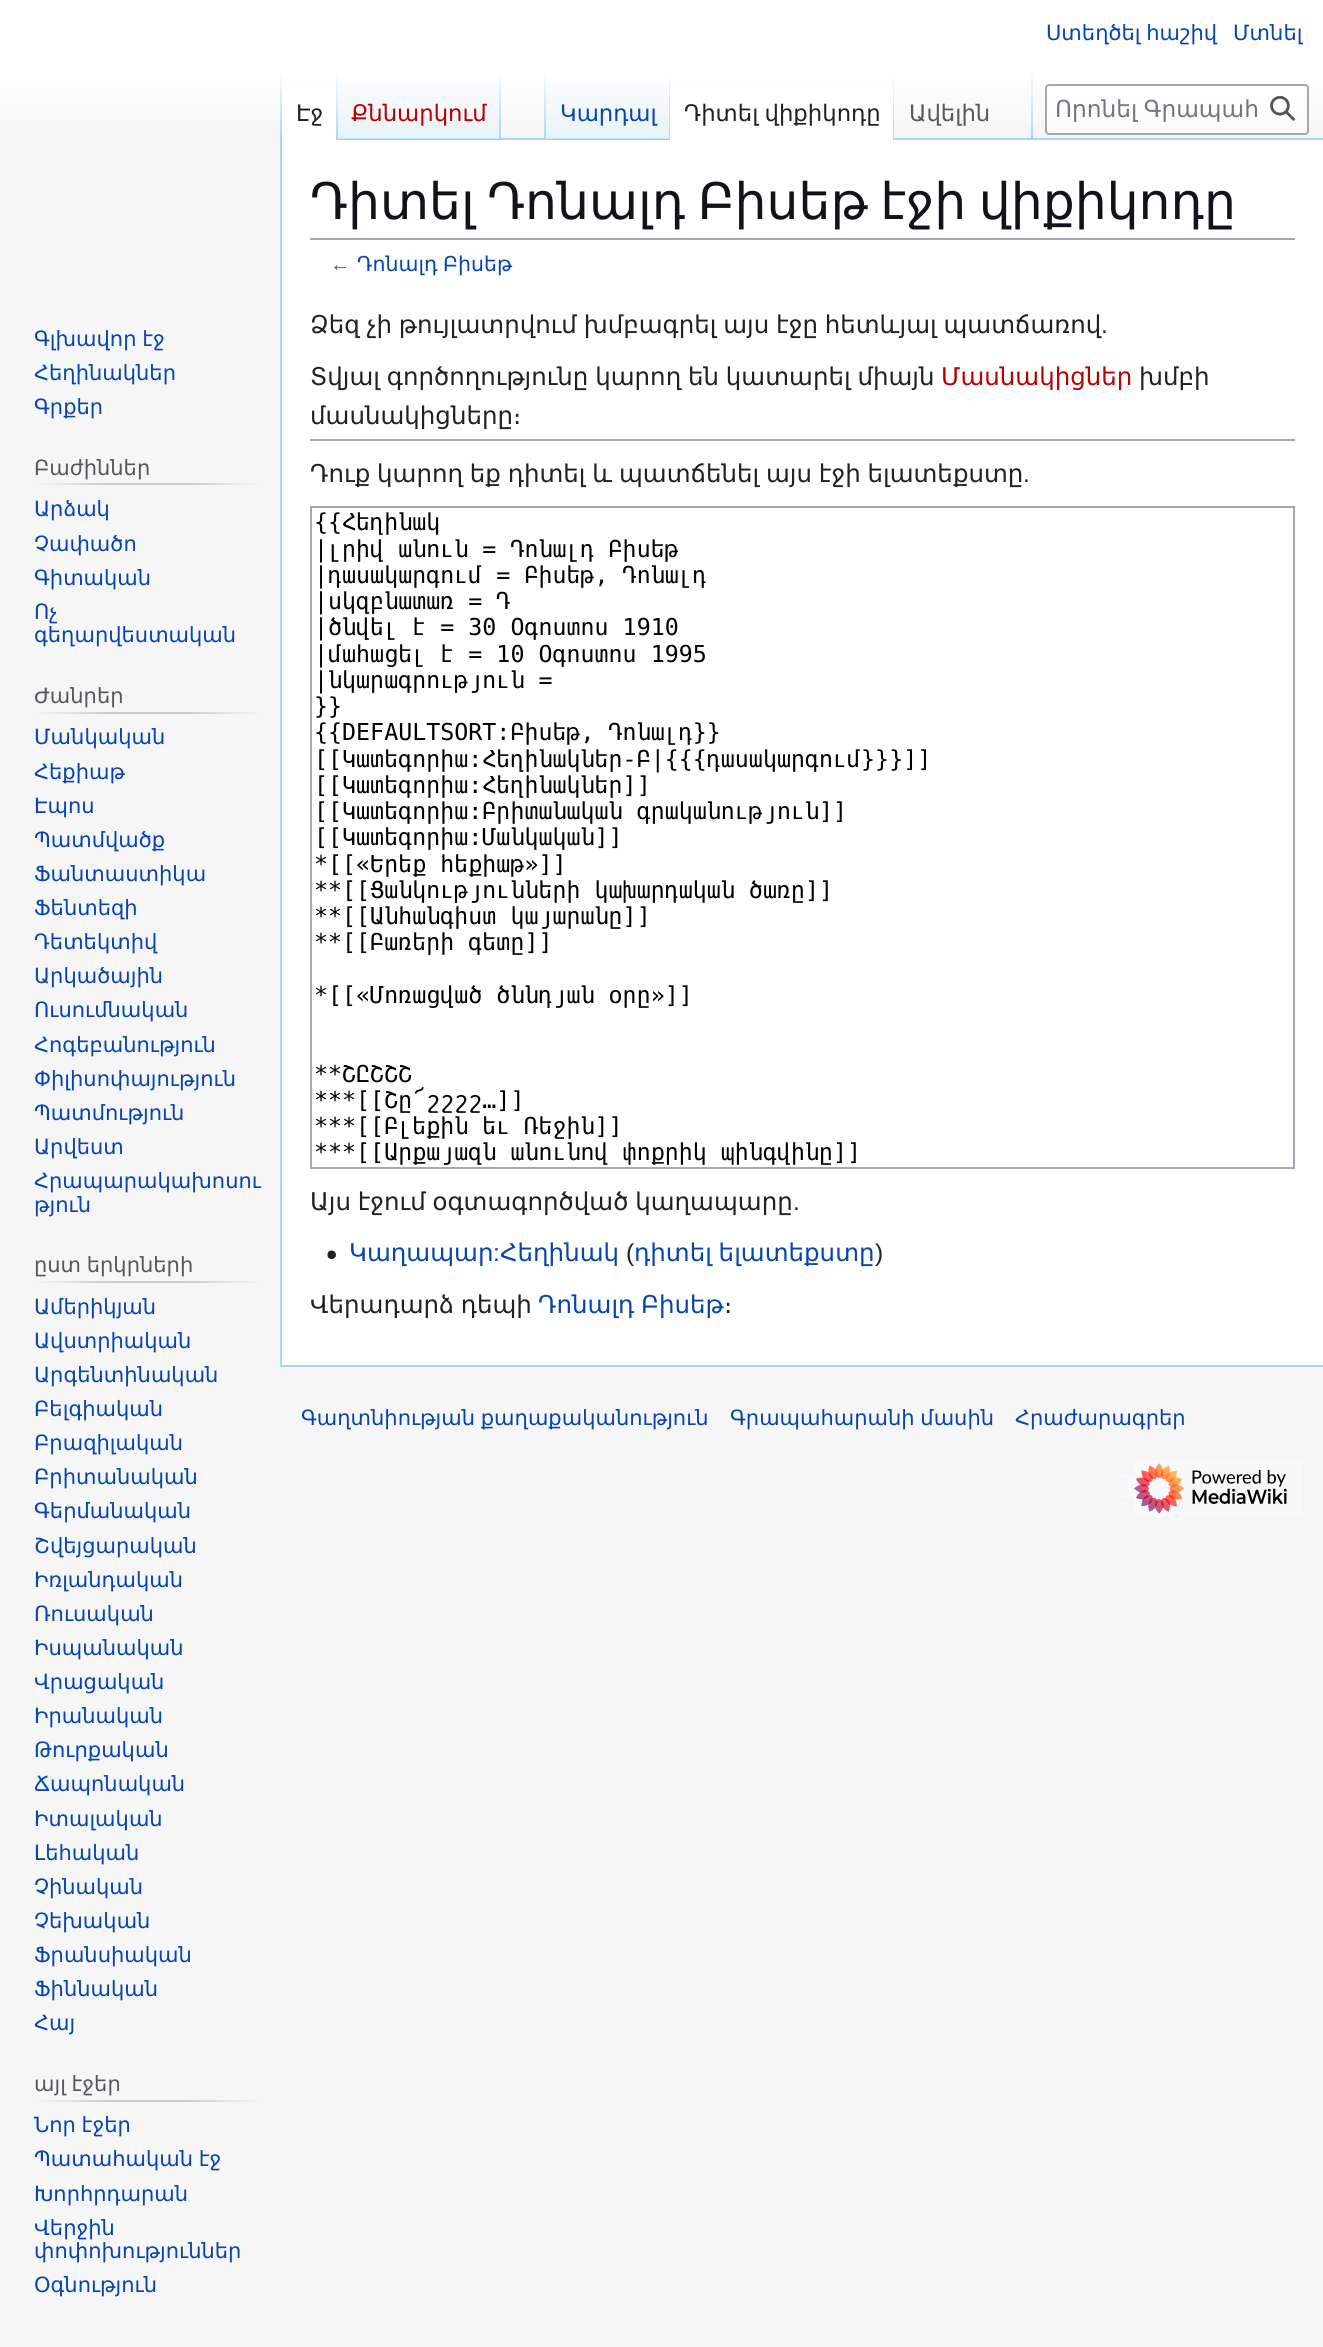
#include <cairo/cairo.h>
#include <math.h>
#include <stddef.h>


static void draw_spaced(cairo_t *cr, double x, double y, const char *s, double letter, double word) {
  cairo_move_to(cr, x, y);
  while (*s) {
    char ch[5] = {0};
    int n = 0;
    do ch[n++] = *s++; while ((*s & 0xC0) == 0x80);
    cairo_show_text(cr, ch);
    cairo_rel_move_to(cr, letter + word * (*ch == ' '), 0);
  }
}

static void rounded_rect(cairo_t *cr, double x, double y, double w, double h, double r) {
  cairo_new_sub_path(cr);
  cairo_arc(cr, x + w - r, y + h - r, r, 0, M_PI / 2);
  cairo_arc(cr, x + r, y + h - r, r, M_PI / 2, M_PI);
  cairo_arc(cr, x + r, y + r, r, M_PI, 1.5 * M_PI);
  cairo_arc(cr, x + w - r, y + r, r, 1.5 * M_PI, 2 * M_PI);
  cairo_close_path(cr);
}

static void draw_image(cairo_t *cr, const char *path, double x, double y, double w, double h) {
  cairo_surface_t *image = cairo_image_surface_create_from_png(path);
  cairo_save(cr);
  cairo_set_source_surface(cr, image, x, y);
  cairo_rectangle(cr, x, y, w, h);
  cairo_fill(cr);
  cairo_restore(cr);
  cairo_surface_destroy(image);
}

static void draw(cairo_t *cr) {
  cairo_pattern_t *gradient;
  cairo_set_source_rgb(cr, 246 / 255.0, 246 / 255.0, 246 / 255.0);
  cairo_paint(cr);
  gradient = cairo_pattern_create_linear(662, 0, 662, 140);
  cairo_pattern_add_color_stop_rgba(gradient, 0.5, 1, 1, 1, 1);
  cairo_pattern_add_color_stop_rgba(gradient, 1, 246 / 255.0, 246 / 255.0, 246 / 255.0, 1);
  cairo_set_source(cr, gradient);
  cairo_pattern_destroy(gradient);
  cairo_rectangle(cr, 0, 0, 1323, 121);
  cairo_fill(cr);
  cairo_set_source_rgb(cr, 167 / 255.0, 215 / 255.0, 249 / 255.0);
  cairo_rectangle(cr, 280, 1365, 1043, 2);
  cairo_fill(cr);
  cairo_rectangle(cr, 280, 138, 2, 1229);
  cairo_fill(cr);
  gradient = cairo_pattern_create_linear(281, 70, 281, 140);
  cairo_pattern_add_color_stop_rgba(gradient, 0, 167 / 255.0, 215 / 255.0, 249 / 255.0, 0);
  cairo_pattern_add_color_stop_rgba(gradient, 1, 167 / 255.0, 215 / 255.0, 249 / 255.0, 1);
  cairo_set_source(cr, gradient);
  cairo_pattern_destroy(gradient);
  cairo_rectangle(cr, 280, 70, 2, 70);
  cairo_fill(cr);
  cairo_set_source_rgb(cr, 1, 1, 1);
  cairo_rectangle(cr, 282, 89, 54, 51);
  cairo_fill(cr);
  gradient = cairo_pattern_create_linear(337, 70, 337, 140);
  cairo_pattern_add_color_stop_rgba(gradient, 0, 1, 1, 1, 1);
  cairo_pattern_add_color_stop_rgba(gradient, 1, 167 / 255.0, 215 / 255.0, 249 / 255.0, 1);
  cairo_set_source(cr, gradient);
  cairo_pattern_destroy(gradient);
  cairo_rectangle(cr, 336, 70, 2, 70);
  cairo_fill(cr);
  gradient = cairo_pattern_create_linear(419, 140, 419, 70);
  cairo_pattern_add_color_stop_rgba(gradient, 0, 119 / 255.0, 193 / 255.0, 246 / 255.0, 1);
  cairo_pattern_add_color_stop_rgba(gradient, 0.03, 232 / 255.0, 242 / 255.0, 248 / 255.0, 1);
  cairo_pattern_add_color_stop_rgba(gradient, 1, 1, 1, 1, 1);
  cairo_set_source(cr, gradient);
  cairo_pattern_destroy(gradient);
  cairo_rectangle(cr, 338, 80, 163, 60);
  cairo_fill(cr);
  gradient = cairo_pattern_create_linear(500, 70, 500, 140);
  cairo_pattern_add_color_stop_rgba(gradient, 0, 167 / 255.0, 215 / 255.0, 249 / 255.0, 0);
  cairo_pattern_add_color_stop_rgba(gradient, 1, 167 / 255.0, 215 / 255.0, 249 / 255.0, 1);
  cairo_set_source(cr, gradient);
  cairo_pattern_destroy(gradient);
  cairo_rectangle(cr, 499, 70, 2, 70);
  cairo_fill(cr);
  cairo_set_source_rgb(cr, 167 / 255.0, 215 / 255.0, 249 / 255.0);
  cairo_rectangle(cr, 501, 138, 822, 2);
  cairo_fill(cr);
  gradient = cairo_pattern_create_linear(545, 70, 545, 140);
  cairo_pattern_add_color_stop_rgba(gradient, 0, 167 / 255.0, 215 / 255.0, 249 / 255.0, 0);
  cairo_pattern_add_color_stop_rgba(gradient, 1, 167 / 255.0, 215 / 255.0, 249 / 255.0, 1);
  cairo_set_source(cr, gradient);
  cairo_pattern_destroy(gradient);
  cairo_rectangle(cr, 544, 70, 2, 70);
  cairo_fill(cr);
  gradient = cairo_pattern_create_linear(608, 140, 608, 70);
  cairo_pattern_add_color_stop_rgba(gradient, 0, 119 / 255.0, 193 / 255.0, 246 / 255.0, 1);
  cairo_pattern_add_color_stop_rgba(gradient, 0.03, 232 / 255.0, 242 / 255.0, 248 / 255.0, 1);
  cairo_pattern_add_color_stop_rgba(gradient, 1, 1, 1, 1, 1);
  cairo_set_source(cr, gradient);
  cairo_pattern_destroy(gradient);
  cairo_rectangle(cr, 546, 80, 124, 60);
  cairo_fill(cr);
  gradient = cairo_pattern_create_linear(669, 70, 669, 140);
  cairo_pattern_add_color_stop_rgba(gradient, 0, 167 / 255.0, 215 / 255.0, 249 / 255.0, 0);
  cairo_pattern_add_color_stop_rgba(gradient, 1, 167 / 255.0, 215 / 255.0, 249 / 255.0, 1);
  cairo_set_source(cr, gradient);
  cairo_pattern_destroy(gradient);
  cairo_rectangle(cr, 669, 70, 1, 70);
  cairo_fill(cr);
  cairo_set_source_rgb(cr, 1, 1, 1);
  cairo_rectangle(cr, 670, 89, 223, 51);
  cairo_fill(cr);
  gradient = cairo_pattern_create_linear(893, 70, 893, 140);
  cairo_pattern_add_color_stop_rgba(gradient, 0, 1, 1, 1, 1);
  cairo_pattern_add_color_stop_rgba(gradient, 1, 167 / 255.0, 215 / 255.0, 249 / 255.0, 1);
  cairo_set_source(cr, gradient);
  cairo_pattern_destroy(gradient);
  cairo_rectangle(cr, 893, 70, 1, 70);
  cairo_fill(cr);
  gradient = cairo_pattern_create_linear(1032, 70, 1032, 140);
  cairo_pattern_add_color_stop_rgba(gradient, 0, 167 / 255.0, 215 / 255.0, 249 / 255.0, 0);
  cairo_pattern_add_color_stop_rgba(gradient, 1, 167 / 255.0, 215 / 255.0, 249 / 255.0, 1);
  cairo_set_source(cr, gradient);
  cairo_pattern_destroy(gradient);
  cairo_rectangle(cr, 1031, 70, 2, 70);
  cairo_fill(cr);
  cairo_set_source_rgba(cr, 1, 1, 1, 0.5);
  rounded_rect(cr, 1046, 85, 262, 49, 3);
  cairo_fill_preserve(cr);
  cairo_set_source_rgb(cr, 162 / 255.0, 169 / 255.0, 177 / 255.0);
  cairo_stroke(cr);
  draw_image(cr, "images/1.png", 1270, 95, 26, 26);
  gradient = cairo_pattern_create_linear(33, 484, 263, 484);
  cairo_pattern_add_color_stop_rgba(gradient, 0, 246 / 255.0, 246 / 255.0, 246 / 255.0, 1);
  cairo_pattern_add_color_stop_rgba(gradient, 0.33, 200 / 255.0, 204 / 255.0, 209 / 255.0, 1);
  cairo_pattern_add_color_stop_rgba(gradient, 0.66, 200 / 255.0, 204 / 255.0, 209 / 255.0, 1);
  cairo_pattern_add_color_stop_rgba(gradient, 1, 246 / 255.0, 246 / 255.0, 246 / 255.0, 1);
  cairo_set_source(cr, gradient);
  cairo_pattern_destroy(gradient);
  cairo_rectangle(cr, 33, 483, 230, 2);
  cairo_fill(cr);
  gradient = cairo_pattern_create_linear(33, 713, 263, 713);
  cairo_pattern_add_color_stop_rgba(gradient, 0, 246 / 255.0, 246 / 255.0, 246 / 255.0, 1);
  cairo_pattern_add_color_stop_rgba(gradient, 0.33, 200 / 255.0, 204 / 255.0, 209 / 255.0, 1);
  cairo_pattern_add_color_stop_rgba(gradient, 0.66, 200 / 255.0, 204 / 255.0, 209 / 255.0, 1);
  cairo_pattern_add_color_stop_rgba(gradient, 1, 246 / 255.0, 246 / 255.0, 246 / 255.0, 1);
  cairo_set_source(cr, gradient);
  cairo_pattern_destroy(gradient);
  cairo_rectangle(cr, 33, 712, 230, 2);
  cairo_fill(cr);
  gradient = cairo_pattern_create_linear(33, 1282, 263, 1282);
  cairo_pattern_add_color_stop_rgba(gradient, 0, 246 / 255.0, 246 / 255.0, 246 / 255.0, 1);
  cairo_pattern_add_color_stop_rgba(gradient, 0.33, 200 / 255.0, 204 / 255.0, 209 / 255.0, 1);
  cairo_pattern_add_color_stop_rgba(gradient, 0.66, 200 / 255.0, 204 / 255.0, 209 / 255.0, 1);
  cairo_pattern_add_color_stop_rgba(gradient, 1, 246 / 255.0, 246 / 255.0, 246 / 255.0, 1);
  cairo_set_source(cr, gradient);
  cairo_pattern_destroy(gradient);
  cairo_rectangle(cr, 33, 1281, 230, 2);
  cairo_fill(cr);
  gradient = cairo_pattern_create_linear(33, 2101, 263, 2101);
  cairo_pattern_add_color_stop_rgba(gradient, 0, 246 / 255.0, 246 / 255.0, 246 / 255.0, 1);
  cairo_pattern_add_color_stop_rgba(gradient, 0.33, 200 / 255.0, 204 / 255.0, 209 / 255.0, 1);
  cairo_pattern_add_color_stop_rgba(gradient, 0.66, 200 / 255.0, 204 / 255.0, 209 / 255.0, 1);
  cairo_pattern_add_color_stop_rgba(gradient, 1, 246 / 255.0, 246 / 255.0, 246 / 255.0, 1);
  cairo_set_source(cr, gradient);
  cairo_pattern_destroy(gradient);
  cairo_rectangle(cr, 33, 2100, 230, 2);
  cairo_fill(cr);
  cairo_set_source_rgb(cr, 1, 1, 1);
  cairo_rectangle(cr, 282, 140, 1041, 1225);
  cairo_fill(cr);
  cairo_set_source_rgb(cr, 162 / 255.0, 169 / 255.0, 177 / 255.0);
  cairo_rectangle(cr, 310, 238, 985, 2);
  cairo_fill(cr);
  cairo_rectangle(cr, 310, 439, 985, 2);
  cairo_fill(cr);
  cairo_rectangle(cr, 311, 507, 983, 661);
  cairo_stroke(cr);
  draw_image(cr, "images/2.png", 327, 1250, 9, 10);
  cairo_set_source_rgb(cr, 248 / 255.0, 249 / 255.0, 250 / 255.0);
  cairo_rectangle(cr, 1134, 1461, 168, 55);
  cairo_fill(cr);
  cairo_rectangle(cr, 1120, 1474, 14, 24);
  cairo_fill(cr);
  draw_image(cr, "images/3.png", 1134, 1463, 153, 51);
  cairo_select_font_face(cr, "DejaVu Sans", CAIRO_FONT_SLANT_NORMAL, CAIRO_FONT_WEIGHT_NORMAL);
  cairo_set_font_size(cr, 21);
  cairo_set_source_rgb(cr, 6 / 255.0, 69 / 255.0, 173 / 255.0);
  draw_spaced(cr, 1046, 40, "Ստեղծել հաշիվ", 0, -1);
  cairo_move_to(cr, 1233, 40);
  cairo_show_text(cr, "Մտնել");
  cairo_set_font_size(cr, 22.75);
  cairo_set_source_rgb(cr, 32 / 255.0, 33 / 255.0, 34 / 255.0);
  cairo_move_to(cr, 296, 121);
  cairo_show_text(cr, "Էջ");
  cairo_set_source_rgb(cr, 186 / 255.0, 0, 0);
  cairo_move_to(cr, 351, 121);
  cairo_show_text(cr, "Քննարկում");
  cairo_set_source_rgb(cr, 6 / 255.0, 69 / 255.0, 173 / 255.0);
  cairo_move_to(cr, 560, 121);
  cairo_show_text(cr, "Կարդալ");
  cairo_set_source_rgb(cr, 32 / 255.0, 33 / 255.0, 34 / 255.0);
  draw_spaced(cr, 684, 121, "Դիտել վիքիկոդը", 0, -1);
  cairo_set_source_rgb(cr, 84 / 255.0, 89 / 255.0, 93 / 255.0);
  cairo_move_to(cr, 909, 121);
  cairo_show_text(cr, "Ավելին");
  cairo_save(cr);
  cairo_rectangle(cr, 1055, 96, 202, 27);
  cairo_clip(cr);
  cairo_set_font_size(cr, 23.3);
  cairo_set_source_rgb(cr, 114 / 255.0, 119 / 255.0, 125 / 255.0);
  draw_spaced(cr, 1055, 117, "Որոնել Գրապահ", 0, -1);
  cairo_restore(cr);
  cairo_set_font_size(cr, 21);
  cairo_set_source_rgb(cr, 6 / 255.0, 69 / 255.0, 173 / 255.0);
  draw_spaced(cr, 34, 346, "Գլխավոր էջ", 0, -1);
  cairo_move_to(cr, 34, 380);
  cairo_show_text(cr, "Հեղինակներ");
  cairo_move_to(cr, 34, 414);
  cairo_show_text(cr, "Գրքեր");
  cairo_set_source_rgb(cr, 84 / 255.0, 89 / 255.0, 93 / 255.0);
  cairo_move_to(cr, 34, 475);
  cairo_show_text(cr, "Բաժիններ");
  cairo_set_source_rgb(cr, 6 / 255.0, 69 / 255.0, 173 / 255.0);
  cairo_move_to(cr, 34, 516);
  cairo_show_text(cr, "Արձակ");
  cairo_move_to(cr, 34, 551);
  cairo_show_text(cr, "Չափածո");
  cairo_move_to(cr, 34, 585);
  cairo_show_text(cr, "Գիտական");
  cairo_move_to(cr, 34, 619);
  cairo_show_text(cr, "Ոչ");
  cairo_move_to(cr, 34, 642);
  cairo_show_text(cr, "գեղարվեստական");
  cairo_set_source_rgb(cr, 84 / 255.0, 89 / 255.0, 93 / 255.0);
  cairo_move_to(cr, 34, 703);
  cairo_show_text(cr, "Ժանրեր");
  cairo_set_source_rgb(cr, 6 / 255.0, 69 / 255.0, 173 / 255.0);
  cairo_move_to(cr, 34, 744);
  cairo_show_text(cr, "Մանկական");
  cairo_move_to(cr, 34, 779);
  cairo_show_text(cr, "Հեքիաթ");
  cairo_move_to(cr, 34, 813);
  cairo_show_text(cr, "Էպոս");
  cairo_move_to(cr, 34, 847);
  cairo_show_text(cr, "Պատմվածք");
  cairo_move_to(cr, 34, 881);
  cairo_show_text(cr, "Ֆանտաստիկա");
  cairo_move_to(cr, 34, 915);
  cairo_show_text(cr, "Ֆենտեզի");
  cairo_move_to(cr, 34, 949);
  cairo_show_text(cr, "Դետեկտիվ");
  cairo_move_to(cr, 34, 983);
  cairo_show_text(cr, "Արկածային");
  cairo_move_to(cr, 34, 1017);
  cairo_show_text(cr, "Ուսումնական");
  cairo_move_to(cr, 34, 1052);
  cairo_show_text(cr, "Հոգեբանություն");
  cairo_move_to(cr, 34, 1086);
  cairo_show_text(cr, "Փիլիսոփայություն");
  cairo_move_to(cr, 34, 1120);
  cairo_show_text(cr, "Պատմություն");
  cairo_move_to(cr, 34, 1154);
  cairo_show_text(cr, "Արվեստ");
  cairo_move_to(cr, 34, 1188);
  cairo_show_text(cr, "Հրապարակախոսու");
  cairo_move_to(cr, 34, 1212);
  cairo_show_text(cr, "թյուն");
  cairo_set_source_rgb(cr, 84 / 255.0, 89 / 255.0, 93 / 255.0);
  draw_spaced(cr, 34, 1272, "ըստ երկրների", 0, -1);
  cairo_set_source_rgb(cr, 6 / 255.0, 69 / 255.0, 173 / 255.0);
  cairo_move_to(cr, 34, 1314);
  cairo_show_text(cr, "Ամերիկյան");
  cairo_move_to(cr, 34, 1348);
  cairo_show_text(cr, "Ավստրիական");
  cairo_move_to(cr, 34, 1382);
  cairo_show_text(cr, "Արգենտինական");
  cairo_move_to(cr, 34, 1416);
  cairo_show_text(cr, "Բելգիական");
  cairo_move_to(cr, 34, 1450);
  cairo_show_text(cr, "Բրազիլական");
  cairo_move_to(cr, 34, 1484);
  cairo_show_text(cr, "Բրիտանական");
  cairo_move_to(cr, 34, 1518);
  cairo_show_text(cr, "Գերմանական");
  cairo_move_to(cr, 34, 1553);
  cairo_show_text(cr, "Շվեյցարական");
  cairo_move_to(cr, 34, 1587);
  cairo_show_text(cr, "Իռլանդական");
  cairo_move_to(cr, 34, 1621);
  cairo_show_text(cr, "Ռուսական");
  cairo_move_to(cr, 34, 1655);
  cairo_show_text(cr, "Իսպանական");
  cairo_move_to(cr, 34, 1689);
  cairo_show_text(cr, "Վրացական");
  cairo_move_to(cr, 34, 1723);
  cairo_show_text(cr, "Իրանական");
  cairo_move_to(cr, 34, 1757);
  cairo_show_text(cr, "Թուրքական");
  cairo_move_to(cr, 34, 1791);
  cairo_show_text(cr, "Ճապոնական");
  cairo_move_to(cr, 34, 1826);
  cairo_show_text(cr, "Իտալական");
  cairo_move_to(cr, 34, 1860);
  cairo_show_text(cr, "Լեհական");
  cairo_move_to(cr, 34, 1894);
  cairo_show_text(cr, "Չինական");
  cairo_move_to(cr, 34, 1928);
  cairo_show_text(cr, "Չեխական");
  cairo_move_to(cr, 34, 1962);
  cairo_show_text(cr, "Ֆրանսիական");
  cairo_move_to(cr, 34, 1996);
  cairo_show_text(cr, "Ֆիննական");
  cairo_move_to(cr, 34, 2030);
  cairo_show_text(cr, "Հայ");
  cairo_set_source_rgb(cr, 84 / 255.0, 89 / 255.0, 93 / 255.0);
  draw_spaced(cr, 34, 2091, "այլ էջեր", 0, -1);
  cairo_set_source_rgb(cr, 6 / 255.0, 69 / 255.0, 173 / 255.0);
  draw_spaced(cr, 34, 2132, "Նոր էջեր", 0, -1);
  draw_spaced(cr, 34, 2166, "Պատահական էջ", 0, -1);
  cairo_move_to(cr, 34, 2201);
  cairo_show_text(cr, "Խորհրդարան");
  cairo_move_to(cr, 34, 2235);
  cairo_show_text(cr, "Վերջին");
  cairo_move_to(cr, 34, 2258);
  cairo_show_text(cr, "փոփոխություններ");
  cairo_move_to(cr, 34, 2292);
  cairo_show_text(cr, "Օգնություն");
  cairo_set_font_size(cr, 50.4);
  cairo_set_source_rgb(cr, 16 / 255.0, 20 / 255.0, 24 / 255.0);
  draw_spaced(cr, 310, 219, "Դիտել Դոնալդ Բիսեթ էջի վիքիկոդը", 0, -3.5);
  cairo_select_font_face(cr, "Liberation Sans", CAIRO_FONT_SLANT_NORMAL, CAIRO_FONT_WEIGHT_NORMAL);
  cairo_set_font_size(cr, 20.5);
  cairo_set_source_rgb(cr, 84 / 255.0, 89 / 255.0, 93 / 255.0);
  cairo_move_to(cr, 330, 271);
  cairo_show_text(cr, "←");
  cairo_select_font_face(cr, "DejaVu Sans", CAIRO_FONT_SLANT_NORMAL, CAIRO_FONT_WEIGHT_NORMAL);
  cairo_set_source_rgb(cr, 6 / 255.0, 69 / 255.0, 173 / 255.0);
  draw_spaced(cr, 357, 271, "Դոնալդ Բիսեթ", 0, -1);
  cairo_set_font_size(cr, 24.5);
  cairo_set_source_rgb(cr, 32 / 255.0, 33 / 255.0, 34 / 255.0);
  draw_spaced(cr, 310, 333, "Ձեզ չի թույլատրվում խմբագրել այս էջը հետևյալ պատճառով", 0, -1);
  cairo_select_font_face(cr, "Liberation Sans", CAIRO_FONT_SLANT_NORMAL, CAIRO_FONT_WEIGHT_NORMAL);
  cairo_move_to(cr, 1101, 333);
  cairo_show_text(cr, ".");
  cairo_select_font_face(cr, "DejaVu Sans", CAIRO_FONT_SLANT_NORMAL, CAIRO_FONT_WEIGHT_NORMAL);
  draw_spaced(cr, 310, 385, "Տվյալ գործողությունը կարող են կատարել միայն", 0, -1);
  cairo_set_source_rgb(cr, 186 / 255.0, 0, 0);
  cairo_move_to(cr, 941, 385);
  cairo_show_text(cr, "Մասնակիցներ");
  cairo_set_source_rgb(cr, 32 / 255.0, 33 / 255.0, 34 / 255.0);
  cairo_move_to(cr, 1139, 385);
  cairo_show_text(cr, "խմբի");
  cairo_move_to(cr, 310, 424);
  cairo_show_text(cr, "մասնակիցները։");
  draw_spaced(cr, 310, 482, "Դուք կարող եք դիտել և պատճենել այս էջի ելատեքստը", 0, -1);
  cairo_select_font_face(cr, "Liberation Sans", CAIRO_FONT_SLANT_NORMAL, CAIRO_FONT_WEIGHT_NORMAL);
  cairo_move_to(cr, 1023, 482);
  cairo_show_text(cr, ".");
  cairo_select_font_face(cr, "DejaVu Sans Mono", CAIRO_FONT_SLANT_NORMAL, CAIRO_FONT_WEIGHT_NORMAL);
  cairo_set_font_size(cr, 23.3);
  cairo_set_source_rgb(cr, 0, 0, 0);
  cairo_move_to(cr, 314, 530);
  cairo_show_text(cr, "{{Հեղինակ");
  cairo_move_to(cr, 314, 557);
  cairo_show_text(cr, "|լրիվ անուն = Դոնալդ Բիսեթ");
  cairo_move_to(cr, 314, 583);
  cairo_show_text(cr, "|դասակարգում = Բիսեթ, Դոնալդ");
  cairo_move_to(cr, 314, 609);
  cairo_show_text(cr, "|սկզբնատառ = Դ");
  cairo_move_to(cr, 314, 635);
  cairo_show_text(cr, "|ծնվել է = 30 Օգոստոս 1910");
  cairo_move_to(cr, 314, 662);
  cairo_show_text(cr, "|մահացել է = 10 Օգոստոս 1995");
  cairo_move_to(cr, 314, 688);
  cairo_show_text(cr, "|նկարագրություն =");
  cairo_move_to(cr, 314, 714);
  cairo_show_text(cr, "}}");
  cairo_move_to(cr, 314, 740);
  cairo_show_text(cr, "{{DEFAULTSORT:Բիսեթ, Դոնալդ}}");
  cairo_move_to(cr, 314, 767);
  cairo_show_text(cr, "[[Կատեգորիա:Հեղինակներ-Բ|{{{դասակարգում}}}]]");
  cairo_move_to(cr, 314, 793);
  cairo_show_text(cr, "[[Կատեգորիա:Հեղինակներ]]");
  cairo_move_to(cr, 314, 819);
  cairo_show_text(cr, "[[Կատեգորիա:Բրիտանական գրականություն]]");
  cairo_move_to(cr, 314, 845);
  cairo_show_text(cr, "[[Կատեգորիա:Մանկական]]");
  cairo_move_to(cr, 314, 872);
  cairo_show_text(cr, "*[[«Երեք հեքիաթ»]]");
  cairo_move_to(cr, 314, 898);
  cairo_show_text(cr, "**[[Ցանկությունների կախարդական ծառը]]");
  cairo_move_to(cr, 314, 924);
  cairo_show_text(cr, "**[[Անհանգիստ կայարանը]]");
  cairo_move_to(cr, 314, 950);
  cairo_show_text(cr, "**[[Բառերի գետը]]");
  cairo_move_to(cr, 314, 1003);
  cairo_show_text(cr, "*[[«Մոռացված ծննդյան օրը»]]");
  cairo_move_to(cr, 314, 1082);
  cairo_show_text(cr, "**ՇԸՇՇՇ");
  cairo_move_to(cr, 314, 1108);
  cairo_show_text(cr, "***[[Շը՜շշշշ…]]");
  cairo_move_to(cr, 314, 1134);
  cairo_show_text(cr, "***[[Բլեքին եւ Ռեջին]]");
  cairo_move_to(cr, 314, 1160);
  cairo_show_text(cr, "***[[Արքայազն անունով փոքրիկ պինգվինը]]");
  cairo_select_font_face(cr, "DejaVu Sans", CAIRO_FONT_SLANT_NORMAL, CAIRO_FONT_WEIGHT_NORMAL);
  cairo_set_font_size(cr, 24.5);
  cairo_set_source_rgb(cr, 32 / 255.0, 33 / 255.0, 34 / 255.0);
  draw_spaced(cr, 310, 1210, "Այս էջում օգտագործված կաղապարը", 0, -1);
  cairo_select_font_face(cr, "Liberation Sans", CAIRO_FONT_SLANT_NORMAL, CAIRO_FONT_WEIGHT_NORMAL);
  cairo_move_to(cr, 793, 1210);
  cairo_show_text(cr, ".");
  cairo_select_font_face(cr, "DejaVu Sans", CAIRO_FONT_SLANT_NORMAL, CAIRO_FONT_WEIGHT_NORMAL);
  cairo_set_source_rgb(cr, 6 / 255.0, 69 / 255.0, 173 / 255.0);
  cairo_move_to(cr, 349, 1261);
  cairo_show_text(cr, "Կաղապար");
  cairo_select_font_face(cr, "Liberation Sans", CAIRO_FONT_SLANT_NORMAL, CAIRO_FONT_WEIGHT_NORMAL);
  cairo_move_to(cr, 493, 1261);
  cairo_show_text(cr, ":");
  cairo_select_font_face(cr, "DejaVu Sans", CAIRO_FONT_SLANT_NORMAL, CAIRO_FONT_WEIGHT_NORMAL);
  cairo_move_to(cr, 500, 1261);
  cairo_show_text(cr, "Հեղինակ");
  cairo_select_font_face(cr, "Liberation Sans", CAIRO_FONT_SLANT_NORMAL, CAIRO_FONT_WEIGHT_NORMAL);
  cairo_set_source_rgb(cr, 32 / 255.0, 33 / 255.0, 34 / 255.0);
  cairo_move_to(cr, 626, 1261);
  cairo_show_text(cr, "(");
  cairo_select_font_face(cr, "DejaVu Sans", CAIRO_FONT_SLANT_NORMAL, CAIRO_FONT_WEIGHT_NORMAL);
  cairo_set_source_rgb(cr, 6 / 255.0, 69 / 255.0, 173 / 255.0);
  draw_spaced(cr, 634, 1261, "դիտել ելատեքստը", 0, -1);
  cairo_select_font_face(cr, "Liberation Sans", CAIRO_FONT_SLANT_NORMAL, CAIRO_FONT_WEIGHT_NORMAL);
  cairo_set_source_rgb(cr, 32 / 255.0, 33 / 255.0, 34 / 255.0);
  cairo_move_to(cr, 875, 1261);
  cairo_show_text(cr, ")");
  cairo_select_font_face(cr, "DejaVu Sans", CAIRO_FONT_SLANT_NORMAL, CAIRO_FONT_WEIGHT_NORMAL);
  draw_spaced(cr, 310, 1313, "Վերադարձ դեպի", 0, -1);
  cairo_set_source_rgb(cr, 6 / 255.0, 69 / 255.0, 173 / 255.0);
  draw_spaced(cr, 538, 1313, "Դոնալդ Բիսեթ", 0, -1);
  cairo_set_source_rgb(cr, 32 / 255.0, 33 / 255.0, 34 / 255.0);
  cairo_move_to(cr, 724, 1313);
  cairo_show_text(cr, "։");
  cairo_set_font_size(cr, 21);
  cairo_set_source_rgb(cr, 6 / 255.0, 69 / 255.0, 173 / 255.0);
  draw_spaced(cr, 301, 1425, "Գաղտնիության քաղաքականություն", 0, -1);
  draw_spaced(cr, 730, 1425, "Գրապահարանի մասին", 0, -1);
  cairo_move_to(cr, 1015, 1425);
  cairo_show_text(cr, "Հրաժարագրեր");
}

int main(void) {
  cairo_surface_t *surface = cairo_image_surface_create(CAIRO_FORMAT_RGB24, 1323, 2347);
  cairo_t *cr = cairo_create(surface);
  cairo_font_options_t *options = cairo_font_options_create();
  cairo_font_options_set_hint_metrics(options, CAIRO_HINT_METRICS_OFF);
  cairo_font_options_set_hint_style(options, CAIRO_HINT_STYLE_NONE);
  cairo_set_font_options(cr, options);
  cairo_set_miter_limit(cr, 4);
  draw(cr);
  cairo_surface_write_to_png(surface, "out.png");
  cairo_font_options_destroy(options);
  cairo_destroy(cr);
  cairo_surface_destroy(surface);
  return 0;
}
